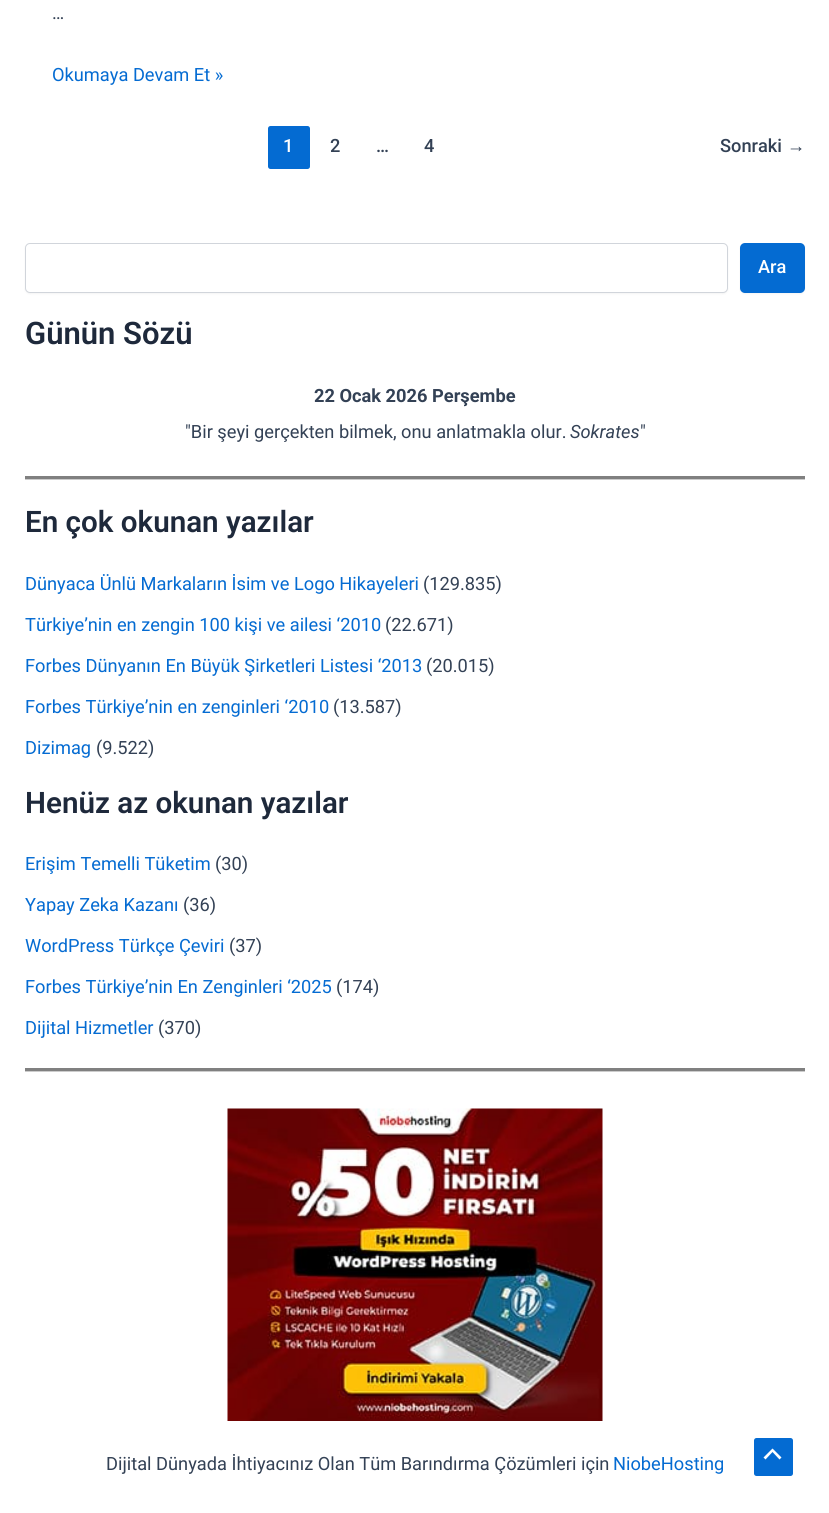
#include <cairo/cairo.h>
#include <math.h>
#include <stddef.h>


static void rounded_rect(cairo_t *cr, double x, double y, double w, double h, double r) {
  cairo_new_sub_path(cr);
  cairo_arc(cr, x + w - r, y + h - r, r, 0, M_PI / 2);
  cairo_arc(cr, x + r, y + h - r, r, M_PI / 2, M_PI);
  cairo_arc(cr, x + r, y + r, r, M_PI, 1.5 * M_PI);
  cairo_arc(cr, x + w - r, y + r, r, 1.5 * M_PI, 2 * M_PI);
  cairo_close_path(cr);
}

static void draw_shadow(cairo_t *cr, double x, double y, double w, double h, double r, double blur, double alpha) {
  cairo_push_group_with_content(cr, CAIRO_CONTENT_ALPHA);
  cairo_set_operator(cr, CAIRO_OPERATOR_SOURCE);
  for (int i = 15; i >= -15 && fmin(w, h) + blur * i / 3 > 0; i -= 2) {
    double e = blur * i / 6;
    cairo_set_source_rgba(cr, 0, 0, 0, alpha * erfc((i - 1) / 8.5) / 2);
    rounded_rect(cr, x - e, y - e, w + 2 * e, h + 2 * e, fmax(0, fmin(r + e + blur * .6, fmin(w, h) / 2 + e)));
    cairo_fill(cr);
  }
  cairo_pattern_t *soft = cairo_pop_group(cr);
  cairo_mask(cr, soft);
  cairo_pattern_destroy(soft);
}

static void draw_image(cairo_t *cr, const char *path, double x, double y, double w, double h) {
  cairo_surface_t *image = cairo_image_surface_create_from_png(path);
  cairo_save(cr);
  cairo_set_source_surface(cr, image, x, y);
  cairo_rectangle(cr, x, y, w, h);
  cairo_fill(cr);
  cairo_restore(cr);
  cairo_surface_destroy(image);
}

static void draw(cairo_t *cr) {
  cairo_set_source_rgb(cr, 1, 1, 1);
  cairo_paint(cr);
  cairo_set_source_rgb(cr, 4 / 255.0, 107 / 255.0, 210 / 255.0);
  rounded_rect(cr, 268, 126, 42, 43, 2.5);
  cairo_fill(cr);
  cairo_set_source_rgb(cr, 0, 0, 0);
  draw_shadow(cr, 25, 244, 703, 50, 5, 1, 0.05);
  cairo_set_source_rgb(cr, 1, 1, 1);
  rounded_rect(cr, 25.5, 243.5, 702, 49, 4.5);
  cairo_fill_preserve(cr);
  cairo_set_source_rgb(cr, 209 / 255.0, 213 / 255.0, 219 / 255.0);
  cairo_set_line_width(cr, 1);
  cairo_stroke(cr);
  cairo_set_source_rgb(cr, 0, 0, 0);
  draw_shadow(cr, 740, 244, 65, 50, 5, 1, 0.05);
  cairo_set_source_rgb(cr, 4 / 255.0, 107 / 255.0, 210 / 255.0);
  rounded_rect(cr, 740, 243, 65, 50, 5);
  cairo_fill(cr);
  cairo_set_source_rgb(cr, 204 / 255.0, 204 / 255.0, 204 / 255.0);
  cairo_rectangle(cr, 25, 479, 780, 1);
  cairo_fill(cr);
  cairo_set_source_rgb(cr, 128 / 255.0, 128 / 255.0, 128 / 255.0);
  cairo_rectangle(cr, 25, 476, 780, 3);
  cairo_fill(cr);
  cairo_set_source_rgb(cr, 204 / 255.0, 204 / 255.0, 204 / 255.0);
  cairo_rectangle(cr, 25, 1071, 780, 1);
  cairo_fill(cr);
  cairo_set_source_rgb(cr, 128 / 255.0, 128 / 255.0, 128 / 255.0);
  cairo_rectangle(cr, 25, 1068, 780, 3);
  cairo_fill(cr);
  draw_image(cr, "images/1.png", 227, 1108, 376, 313);
  cairo_set_source_rgb(cr, 4 / 255.0, 107 / 255.0, 210 / 255.0);
  rounded_rect(cr, 754, 1438, 39, 38, 2.5);
  cairo_fill(cr);
  cairo_set_source_rgb(cr, 1, 1, 1);
  cairo_new_path(cr);
  cairo_move_to(cr, 781.5, 1457.5);
  cairo_line_to(cr, 772.5, 1448.5);
  cairo_line_to(cr, 763.5, 1457.5);
  cairo_line_to(cr, 765.5, 1459.5);
  cairo_line_to(cr, 772.5, 1452);
  cairo_line_to(cr, 779.5, 1459.5);
  cairo_close_path(cr);
  cairo_fill(cr);
  cairo_select_font_face(cr, "Roboto", CAIRO_FONT_SLANT_NORMAL, CAIRO_FONT_WEIGHT_NORMAL);
  cairo_set_font_size(cr, 18.25);
  cairo_set_source_rgb(cr, 51 / 255.0, 65 / 255.0, 85 / 255.0);
  cairo_move_to(cr, 52, 19);
  cairo_show_text(cr, "…");
  cairo_set_source_rgb(cr, 4 / 255.0, 107 / 255.0, 210 / 255.0);
  cairo_move_to(cr, 52, 81);
  cairo_show_text(cr, "Okumaya Devam Et »");
  cairo_select_font_face(cr, "Roboto Medium", CAIRO_FONT_SLANT_NORMAL, CAIRO_FONT_WEIGHT_NORMAL);
  cairo_set_source_rgb(cr, 1, 1, 1);
  cairo_move_to(cr, 283, 152);
  cairo_show_text(cr, "1");
  cairo_set_source_rgb(cr, 51 / 255.0, 65 / 255.0, 85 / 255.0);
  cairo_move_to(cr, 330, 152);
  cairo_show_text(cr, "2");
  cairo_move_to(cr, 376, 152);
  cairo_show_text(cr, "…");
  cairo_move_to(cr, 424, 152);
  cairo_show_text(cr, "4");
  cairo_move_to(cr, 720, 152);
  cairo_show_text(cr, "Sonraki");
  cairo_select_font_face(cr, "Liberation Sans", CAIRO_FONT_SLANT_NORMAL, CAIRO_FONT_WEIGHT_NORMAL);
  cairo_move_to(cr, 787, 152);
  cairo_show_text(cr, "→");
  cairo_select_font_face(cr, "Roboto Medium", CAIRO_FONT_SLANT_NORMAL, CAIRO_FONT_WEIGHT_NORMAL);
  cairo_set_source_rgb(cr, 1, 1, 1);
  cairo_move_to(cr, 758, 273);
  cairo_show_text(cr, "Ara");
  cairo_select_font_face(cr, "Roboto SemiBold", CAIRO_FONT_SLANT_NORMAL, CAIRO_FONT_WEIGHT_NORMAL);
  cairo_set_font_size(cr, 31);
  cairo_set_source_rgb(cr, 30 / 255.0, 41 / 255.0, 59 / 255.0);
  cairo_move_to(cr, 25, 344);
  cairo_show_text(cr, "Günün Sözü");
  cairo_select_font_face(cr, "Roboto", CAIRO_FONT_SLANT_NORMAL, CAIRO_FONT_WEIGHT_BOLD);
  cairo_set_font_size(cr, 18.25);
  cairo_set_source_rgb(cr, 51 / 255.0, 65 / 255.0, 85 / 255.0);
  cairo_move_to(cr, 314, 402);
  cairo_show_text(cr, "22 Ocak 2026 Perşembe");
  cairo_select_font_face(cr, "Roboto", CAIRO_FONT_SLANT_NORMAL, CAIRO_FONT_WEIGHT_NORMAL);
  cairo_move_to(cr, 185, 438);
  cairo_show_text(cr, "\"Bir şeyi gerçekten bilmek, onu anlatmakla olur.");
  cairo_select_font_face(cr, "Roboto", CAIRO_FONT_SLANT_ITALIC, CAIRO_FONT_WEIGHT_NORMAL);
  cairo_move_to(cr, 570, 438);
  cairo_show_text(cr, "Sokrates");
  cairo_select_font_face(cr, "Roboto", CAIRO_FONT_SLANT_NORMAL, CAIRO_FONT_WEIGHT_NORMAL);
  cairo_move_to(cr, 640, 438);
  cairo_show_text(cr, "\"");
  cairo_select_font_face(cr, "Roboto SemiBold", CAIRO_FONT_SLANT_NORMAL, CAIRO_FONT_WEIGHT_NORMAL);
  cairo_set_font_size(cr, 29.6);
  cairo_set_source_rgb(cr, 30 / 255.0, 41 / 255.0, 59 / 255.0);
  cairo_move_to(cr, 25, 532);
  cairo_show_text(cr, "En çok okunan yazılar");
  cairo_select_font_face(cr, "Roboto", CAIRO_FONT_SLANT_NORMAL, CAIRO_FONT_WEIGHT_NORMAL);
  cairo_set_font_size(cr, 18.25);
  cairo_set_source_rgb(cr, 4 / 255.0, 107 / 255.0, 210 / 255.0);
  cairo_move_to(cr, 25, 590);
  cairo_show_text(cr, "Dünyaca Ünlü Markaların İsim ve Logo Hikayeleri");
  cairo_set_source_rgb(cr, 51 / 255.0, 65 / 255.0, 85 / 255.0);
  cairo_move_to(cr, 423, 590);
  cairo_show_text(cr, "(129.835)");
  cairo_set_source_rgb(cr, 4 / 255.0, 107 / 255.0, 210 / 255.0);
  cairo_move_to(cr, 25, 631);
  cairo_show_text(cr, "Türkiye’nin en zengin 100 kişi ve ailesi ‘2010");
  cairo_set_source_rgb(cr, 51 / 255.0, 65 / 255.0, 85 / 255.0);
  cairo_move_to(cr, 385, 631);
  cairo_show_text(cr, "(22.671)");
  cairo_set_source_rgb(cr, 4 / 255.0, 107 / 255.0, 210 / 255.0);
  cairo_move_to(cr, 25, 672);
  cairo_show_text(cr, "Forbes Dünyanın En Büyük Şirketleri Listesi ‘2013");
  cairo_set_source_rgb(cr, 51 / 255.0, 65 / 255.0, 85 / 255.0);
  cairo_move_to(cr, 426, 672);
  cairo_show_text(cr, "(20.015)");
  cairo_set_source_rgb(cr, 4 / 255.0, 107 / 255.0, 210 / 255.0);
  cairo_move_to(cr, 25, 713);
  cairo_show_text(cr, "Forbes Türkiye’nin en zenginleri ‘2010");
  cairo_set_source_rgb(cr, 51 / 255.0, 65 / 255.0, 85 / 255.0);
  cairo_move_to(cr, 333, 713);
  cairo_show_text(cr, "(13.587)");
  cairo_set_source_rgb(cr, 4 / 255.0, 107 / 255.0, 210 / 255.0);
  cairo_move_to(cr, 25, 754);
  cairo_show_text(cr, "Dizimag");
  cairo_set_source_rgb(cr, 51 / 255.0, 65 / 255.0, 85 / 255.0);
  cairo_move_to(cr, 96, 754);
  cairo_show_text(cr, "(9.522)");
  cairo_select_font_face(cr, "Roboto SemiBold", CAIRO_FONT_SLANT_NORMAL, CAIRO_FONT_WEIGHT_NORMAL);
  cairo_set_font_size(cr, 29.6);
  cairo_set_source_rgb(cr, 30 / 255.0, 41 / 255.0, 59 / 255.0);
  cairo_move_to(cr, 25, 813);
  cairo_show_text(cr, "Henüz az okunan yazılar");
  cairo_select_font_face(cr, "Roboto", CAIRO_FONT_SLANT_NORMAL, CAIRO_FONT_WEIGHT_NORMAL);
  cairo_set_font_size(cr, 18.25);
  cairo_set_source_rgb(cr, 4 / 255.0, 107 / 255.0, 210 / 255.0);
  cairo_move_to(cr, 25, 870);
  cairo_show_text(cr, "Erişim Temelli Tüketim");
  cairo_set_source_rgb(cr, 51 / 255.0, 65 / 255.0, 85 / 255.0);
  cairo_move_to(cr, 215, 870);
  cairo_show_text(cr, "(30)");
  cairo_set_source_rgb(cr, 4 / 255.0, 107 / 255.0, 210 / 255.0);
  cairo_move_to(cr, 25, 911);
  cairo_show_text(cr, "Yapay Zeka Kazanı");
  cairo_set_source_rgb(cr, 51 / 255.0, 65 / 255.0, 85 / 255.0);
  cairo_move_to(cr, 183, 911);
  cairo_show_text(cr, "(36)");
  cairo_set_source_rgb(cr, 4 / 255.0, 107 / 255.0, 210 / 255.0);
  cairo_move_to(cr, 25, 952);
  cairo_show_text(cr, "WordPress Türkçe Çeviri");
  cairo_set_source_rgb(cr, 51 / 255.0, 65 / 255.0, 85 / 255.0);
  cairo_move_to(cr, 229, 952);
  cairo_show_text(cr, "(37)");
  cairo_set_source_rgb(cr, 4 / 255.0, 107 / 255.0, 210 / 255.0);
  cairo_move_to(cr, 25, 993);
  cairo_show_text(cr, "Forbes Türkiye’nin En Zenginleri ‘2025");
  cairo_set_source_rgb(cr, 51 / 255.0, 65 / 255.0, 85 / 255.0);
  cairo_move_to(cr, 336, 993);
  cairo_show_text(cr, "(174)");
  cairo_set_source_rgb(cr, 4 / 255.0, 107 / 255.0, 210 / 255.0);
  cairo_move_to(cr, 25, 1034);
  cairo_show_text(cr, "Dijital Hizmetler");
  cairo_set_source_rgb(cr, 51 / 255.0, 65 / 255.0, 85 / 255.0);
  cairo_move_to(cr, 158, 1034);
  cairo_show_text(cr, "(370)");
  cairo_move_to(cr, 106, 1470);
  cairo_show_text(cr, "Dijital Dünyada İhtiyacınız Olan Tüm Barındırma Çözümleri için");
  cairo_set_source_rgb(cr, 4 / 255.0, 107 / 255.0, 210 / 255.0);
  cairo_move_to(cr, 613, 1470);
  cairo_show_text(cr, "NiobeHosting");
}

int main(void) {
  cairo_surface_t *surface = cairo_image_surface_create(CAIRO_FORMAT_RGB24, 829, 1513);
  cairo_t *cr = cairo_create(surface);
  cairo_font_options_t *options = cairo_font_options_create();
  cairo_font_options_set_hint_metrics(options, CAIRO_HINT_METRICS_OFF);
  cairo_font_options_set_hint_style(options, CAIRO_HINT_STYLE_NONE);
  cairo_set_font_options(cr, options);
  cairo_set_miter_limit(cr, 4);
  draw(cr);
  cairo_surface_write_to_png(surface, "out.png");
  cairo_font_options_destroy(options);
  cairo_destroy(cr);
  cairo_surface_destroy(surface);
  return 0;
}
